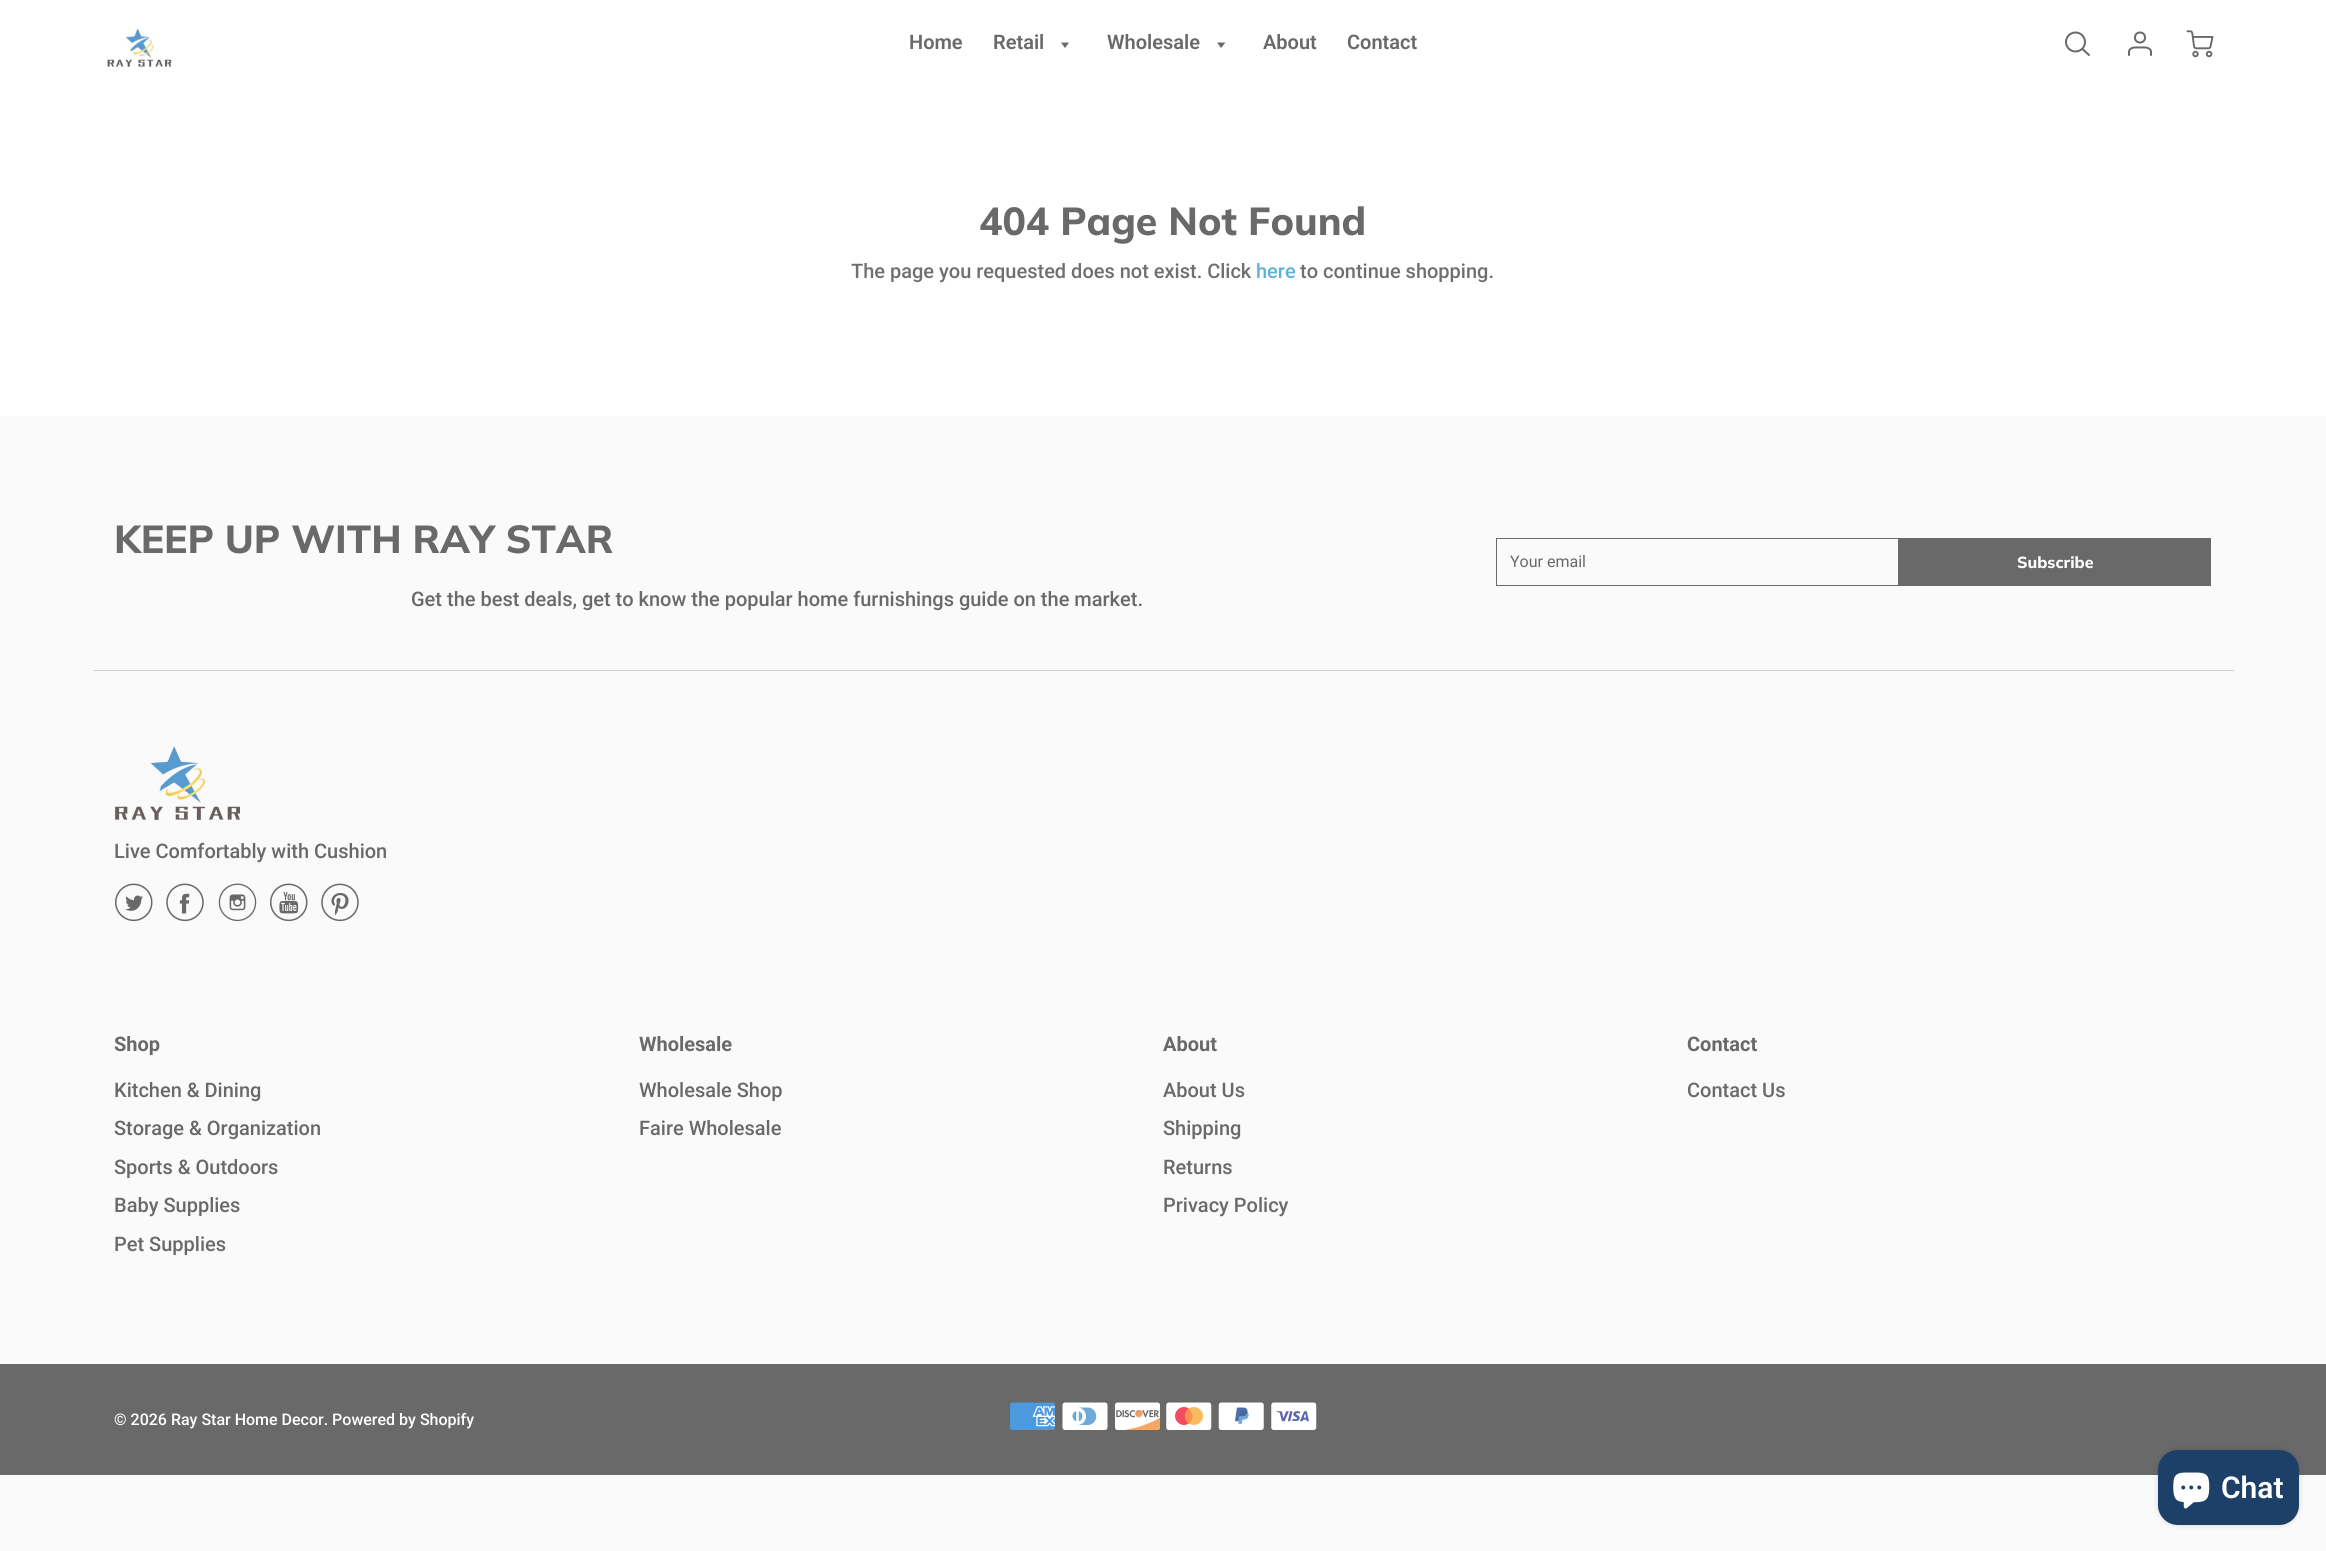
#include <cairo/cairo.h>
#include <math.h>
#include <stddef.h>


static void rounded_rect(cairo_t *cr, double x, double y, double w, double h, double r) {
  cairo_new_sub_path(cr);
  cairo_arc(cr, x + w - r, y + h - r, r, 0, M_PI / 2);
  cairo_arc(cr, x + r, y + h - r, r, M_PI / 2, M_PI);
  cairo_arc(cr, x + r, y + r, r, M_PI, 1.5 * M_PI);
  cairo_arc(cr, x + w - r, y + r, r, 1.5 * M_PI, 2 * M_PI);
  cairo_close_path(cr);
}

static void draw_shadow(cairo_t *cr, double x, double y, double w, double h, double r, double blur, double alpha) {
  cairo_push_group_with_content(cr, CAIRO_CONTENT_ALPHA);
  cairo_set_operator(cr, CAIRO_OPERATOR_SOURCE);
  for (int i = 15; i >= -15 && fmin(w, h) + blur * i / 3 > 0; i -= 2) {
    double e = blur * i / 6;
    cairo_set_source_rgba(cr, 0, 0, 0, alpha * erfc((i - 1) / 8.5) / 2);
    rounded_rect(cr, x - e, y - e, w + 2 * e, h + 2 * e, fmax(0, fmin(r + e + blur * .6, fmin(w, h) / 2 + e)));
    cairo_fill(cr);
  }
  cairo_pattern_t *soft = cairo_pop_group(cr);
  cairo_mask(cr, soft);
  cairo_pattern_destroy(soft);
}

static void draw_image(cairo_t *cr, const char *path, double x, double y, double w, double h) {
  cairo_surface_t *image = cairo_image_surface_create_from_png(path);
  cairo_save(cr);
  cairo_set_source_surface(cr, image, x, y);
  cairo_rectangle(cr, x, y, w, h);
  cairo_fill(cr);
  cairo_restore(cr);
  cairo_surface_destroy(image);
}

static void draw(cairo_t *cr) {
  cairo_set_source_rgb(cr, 250 / 255.0, 250 / 255.0, 250 / 255.0);
  cairo_paint(cr);
  cairo_set_source_rgb(cr, 1, 1, 1);
  cairo_rectangle(cr, 0, 0, 2326, 416);
  cairo_fill(cr);
  draw_image(cr, "images/1.png", 107, 27, 65, 41);
  cairo_set_source_rgb(cr, 105 / 255.0, 105 / 255.0, 105 / 255.0);
  cairo_new_path(cr);
  cairo_move_to(cr, 1061, 42.5);
  cairo_line_to(cr, 1065, 48);
  cairo_line_to(cr, 1069, 42.5);
  cairo_close_path(cr);
  cairo_fill(cr);
  cairo_new_path(cr);
  cairo_move_to(cr, 1217, 42.5);
  cairo_line_to(cr, 1221, 48);
  cairo_line_to(cr, 1225.5, 42.5);
  cairo_close_path(cr);
  cairo_fill(cr);
  cairo_arc(cr, 2075.5, 42, 9.5, 0, 2 * M_PI);
  cairo_stroke(cr);
  cairo_new_path(cr);
  cairo_move_to(cr, 2089, 55);
  cairo_line_to(cr, 2082.5, 49);
  cairo_set_line_cap(cr, CAIRO_LINE_CAP_ROUND);
  cairo_set_line_join(cr, CAIRO_LINE_JOIN_ROUND);
  cairo_stroke(cr);
  cairo_arc(cr, 2140, 37.5, 5, 0, 2 * M_PI);
  cairo_set_line_cap(cr, CAIRO_LINE_CAP_BUTT);
  cairo_set_line_join(cr, CAIRO_LINE_JOIN_MITER);
  cairo_stroke(cr);
  cairo_new_path(cr);
  cairo_move_to(cr, 2151, 55);
  cairo_line_to(cr, 2151, 51.5);
  cairo_curve_to(cr, 2150, 46.5, 2143.5, 47.5, 2140, 47.5);
  cairo_curve_to(cr, 2136.5, 47.5, 2130, 46.5, 2129, 51.5);
  cairo_line_to(cr, 2129, 55);
  cairo_set_line_cap(cr, CAIRO_LINE_CAP_ROUND);
  cairo_set_line_join(cr, CAIRO_LINE_JOIN_ROUND);
  cairo_stroke(cr);
  draw_image(cr, "images/2.png", 2186, 30, 28, 28);
  cairo_rectangle(cr, 1496.5, 538.5, 402, 47);
  cairo_set_line_width(cr, 1);
  cairo_set_line_cap(cr, CAIRO_LINE_CAP_BUTT);
  cairo_set_line_join(cr, CAIRO_LINE_JOIN_MITER);
  cairo_stroke(cr);
  cairo_rectangle(cr, 1899, 538, 312, 48);
  cairo_fill(cr);
  cairo_set_source_rgb(cr, 207 / 255.0, 207 / 255.0, 207 / 255.0);
  cairo_rectangle(cr, 93, 670, 2141, 1);
  cairo_fill(cr);
  draw_image(cr, "images/3.png", 115, 746, 125, 74);
  draw_image(cr, "images/4.png", 115, 883, 38, 39);
  draw_image(cr, "images/5.png", 166, 883, 38, 39);
  draw_image(cr, "images/6.png", 218, 883, 39, 39);
  draw_image(cr, "images/7.png", 270, 883, 38, 39);
  draw_image(cr, "images/8.png", 321, 883, 38, 39);
  cairo_set_source_rgb(cr, 105 / 255.0, 105 / 255.0, 105 / 255.0);
  cairo_rectangle(cr, 0, 1364, 2326, 111);
  cairo_fill(cr);
  draw_image(cr, "images/9.png", 1010, 1402, 45, 28);
  draw_image(cr, "images/10.png", 1062, 1402, 46, 28);
  draw_image(cr, "images/11.png", 1115, 1402, 45, 28);
  draw_image(cr, "images/12.png", 1166, 1402, 46, 28);
  draw_image(cr, "images/13.png", 1218, 1402, 46, 28);
  draw_image(cr, "images/14.png", 1271, 1402, 46, 28);
  cairo_set_source_rgb(cr, 0, 0, 0);
  draw_shadow(cr, 2158, 1450, 141, 75, 20, 3, 0.15);
  cairo_set_source_rgb(cr, 29 / 255.0, 64 / 255.0, 105 / 255.0);
  rounded_rect(cr, 2158, 1450, 141, 75, 20);
  cairo_fill(cr);
  draw_image(cr, "images/15.png", 2173, 1472, 37, 37);
  cairo_select_font_face(cr, "Roboto SemiBold", CAIRO_FONT_SLANT_NORMAL, CAIRO_FONT_WEIGHT_NORMAL);
  cairo_set_font_size(cr, 20);
  cairo_set_source_rgb(cr, 105 / 255.0, 105 / 255.0, 105 / 255.0);
  cairo_move_to(cr, 909, 49);
  cairo_show_text(cr, "Home");
  cairo_move_to(cr, 993, 49);
  cairo_show_text(cr, "Retail");
  cairo_move_to(cr, 1107, 49);
  cairo_show_text(cr, "Wholesale");
  cairo_move_to(cr, 1263, 49);
  cairo_show_text(cr, "About");
  cairo_move_to(cr, 1347, 49);
  cairo_show_text(cr, "Contact");
  cairo_select_font_face(cr, "Muli ExtraBold", CAIRO_FONT_SLANT_NORMAL, CAIRO_FONT_WEIGHT_NORMAL);
  cairo_set_font_size(cr, 39);
  cairo_move_to(cr, 979, 235);
  cairo_show_text(cr, "404 Page Not Found");
  cairo_select_font_face(cr, "Roboto Medium", CAIRO_FONT_SLANT_NORMAL, CAIRO_FONT_WEIGHT_NORMAL);
  cairo_set_font_size(cr, 20);
  cairo_set_source_rgb(cr, 111 / 255.0, 111 / 255.0, 111 / 255.0);
  cairo_move_to(cr, 851, 278);
  cairo_show_text(cr, "The page you requested does not exist. Click");
  cairo_set_source_rgb(cr, 94 / 255.0, 177 / 255.0, 215 / 255.0);
  cairo_move_to(cr, 1256, 278);
  cairo_show_text(cr, "here");
  cairo_set_source_rgb(cr, 111 / 255.0, 111 / 255.0, 111 / 255.0);
  cairo_move_to(cr, 1300, 278);
  cairo_show_text(cr, "to continue shopping.");
  cairo_select_font_face(cr, "Muli ExtraBold", CAIRO_FONT_SLANT_NORMAL, CAIRO_FONT_WEIGHT_NORMAL);
  cairo_set_font_size(cr, 39);
  cairo_set_source_rgb(cr, 105 / 255.0, 105 / 255.0, 105 / 255.0);
  cairo_move_to(cr, 114, 553);
  cairo_show_text(cr, "KEEP UP WITH RAY STAR");
  cairo_select_font_face(cr, "Roboto Medium", CAIRO_FONT_SLANT_NORMAL, CAIRO_FONT_WEIGHT_NORMAL);
  cairo_set_font_size(cr, 20);
  cairo_move_to(cr, 411, 606);
  cairo_show_text(cr, "Get the best deals, get to know the popular home furnishings guide on the market.");
  cairo_select_font_face(cr, "Roboto", CAIRO_FONT_SLANT_NORMAL, CAIRO_FONT_WEIGHT_NORMAL);
  cairo_set_font_size(cr, 16);
  cairo_move_to(cr, 1510, 567);
  cairo_show_text(cr, "Your email");
  cairo_select_font_face(cr, "Muli ExtraBold", CAIRO_FONT_SLANT_NORMAL, CAIRO_FONT_WEIGHT_NORMAL);
  cairo_set_source_rgb(cr, 1, 1, 1);
  cairo_move_to(cr, 2017, 568);
  cairo_show_text(cr, "Subscribe");
  cairo_select_font_face(cr, "Roboto Medium", CAIRO_FONT_SLANT_NORMAL, CAIRO_FONT_WEIGHT_NORMAL);
  cairo_set_font_size(cr, 20);
  cairo_set_source_rgb(cr, 105 / 255.0, 105 / 255.0, 105 / 255.0);
  cairo_move_to(cr, 114, 858);
  cairo_show_text(cr, "Live Comfortably with Cushion");
  cairo_select_font_face(cr, "Roboto", CAIRO_FONT_SLANT_NORMAL, CAIRO_FONT_WEIGHT_BOLD);
  cairo_move_to(cr, 114, 1051);
  cairo_show_text(cr, "Shop");
  cairo_select_font_face(cr, "Roboto Medium", CAIRO_FONT_SLANT_NORMAL, CAIRO_FONT_WEIGHT_NORMAL);
  cairo_move_to(cr, 114, 1097);
  cairo_show_text(cr, "Kitchen & Dining");
  cairo_move_to(cr, 114, 1135);
  cairo_show_text(cr, "Storage & Organization");
  cairo_move_to(cr, 114, 1174);
  cairo_show_text(cr, "Sports & Outdoors");
  cairo_move_to(cr, 114, 1212);
  cairo_show_text(cr, "Baby Supplies");
  cairo_move_to(cr, 114, 1251);
  cairo_show_text(cr, "Pet Supplies");
  cairo_select_font_face(cr, "Roboto", CAIRO_FONT_SLANT_NORMAL, CAIRO_FONT_WEIGHT_BOLD);
  cairo_move_to(cr, 639, 1051);
  cairo_show_text(cr, "Wholesale");
  cairo_select_font_face(cr, "Roboto Medium", CAIRO_FONT_SLANT_NORMAL, CAIRO_FONT_WEIGHT_NORMAL);
  cairo_move_to(cr, 639, 1097);
  cairo_show_text(cr, "Wholesale Shop");
  cairo_move_to(cr, 639, 1135);
  cairo_show_text(cr, "Faire Wholesale");
  cairo_select_font_face(cr, "Roboto", CAIRO_FONT_SLANT_NORMAL, CAIRO_FONT_WEIGHT_BOLD);
  cairo_move_to(cr, 1163, 1051);
  cairo_show_text(cr, "About");
  cairo_select_font_face(cr, "Roboto Medium", CAIRO_FONT_SLANT_NORMAL, CAIRO_FONT_WEIGHT_NORMAL);
  cairo_move_to(cr, 1163, 1097);
  cairo_show_text(cr, "About Us");
  cairo_move_to(cr, 1163, 1135);
  cairo_show_text(cr, "Shipping");
  cairo_move_to(cr, 1163, 1174);
  cairo_show_text(cr, "Returns");
  cairo_move_to(cr, 1163, 1212);
  cairo_show_text(cr, "Privacy Policy");
  cairo_select_font_face(cr, "Roboto", CAIRO_FONT_SLANT_NORMAL, CAIRO_FONT_WEIGHT_BOLD);
  cairo_move_to(cr, 1687, 1051);
  cairo_show_text(cr, "Contact");
  cairo_select_font_face(cr, "Roboto Medium", CAIRO_FONT_SLANT_NORMAL, CAIRO_FONT_WEIGHT_NORMAL);
  cairo_move_to(cr, 1687, 1097);
  cairo_show_text(cr, "Contact Us");
  cairo_set_font_size(cr, 16);
  cairo_set_source_rgb(cr, 1, 1, 1);
  cairo_move_to(cr, 114, 1425);
  cairo_show_text(cr, "© 2026 Ray Star Home Decor. Powered by Shopify");
  cairo_select_font_face(cr, "Roboto SemiBold", CAIRO_FONT_SLANT_NORMAL, CAIRO_FONT_WEIGHT_NORMAL);
  cairo_set_font_size(cr, 30);
  cairo_move_to(cr, 2221, 1498);
  cairo_show_text(cr, "Chat");
}

int main(void) {
  cairo_surface_t *surface = cairo_image_surface_create(CAIRO_FORMAT_RGB24, 2326, 1551);
  cairo_t *cr = cairo_create(surface);
  cairo_font_options_t *options = cairo_font_options_create();
  cairo_font_options_set_hint_metrics(options, CAIRO_HINT_METRICS_OFF);
  cairo_font_options_set_hint_style(options, CAIRO_HINT_STYLE_NONE);
  cairo_set_font_options(cr, options);
  cairo_set_miter_limit(cr, 4);
  draw(cr);
  cairo_surface_write_to_png(surface, "out.png");
  cairo_font_options_destroy(options);
  cairo_destroy(cr);
  cairo_surface_destroy(surface);
  return 0;
}
